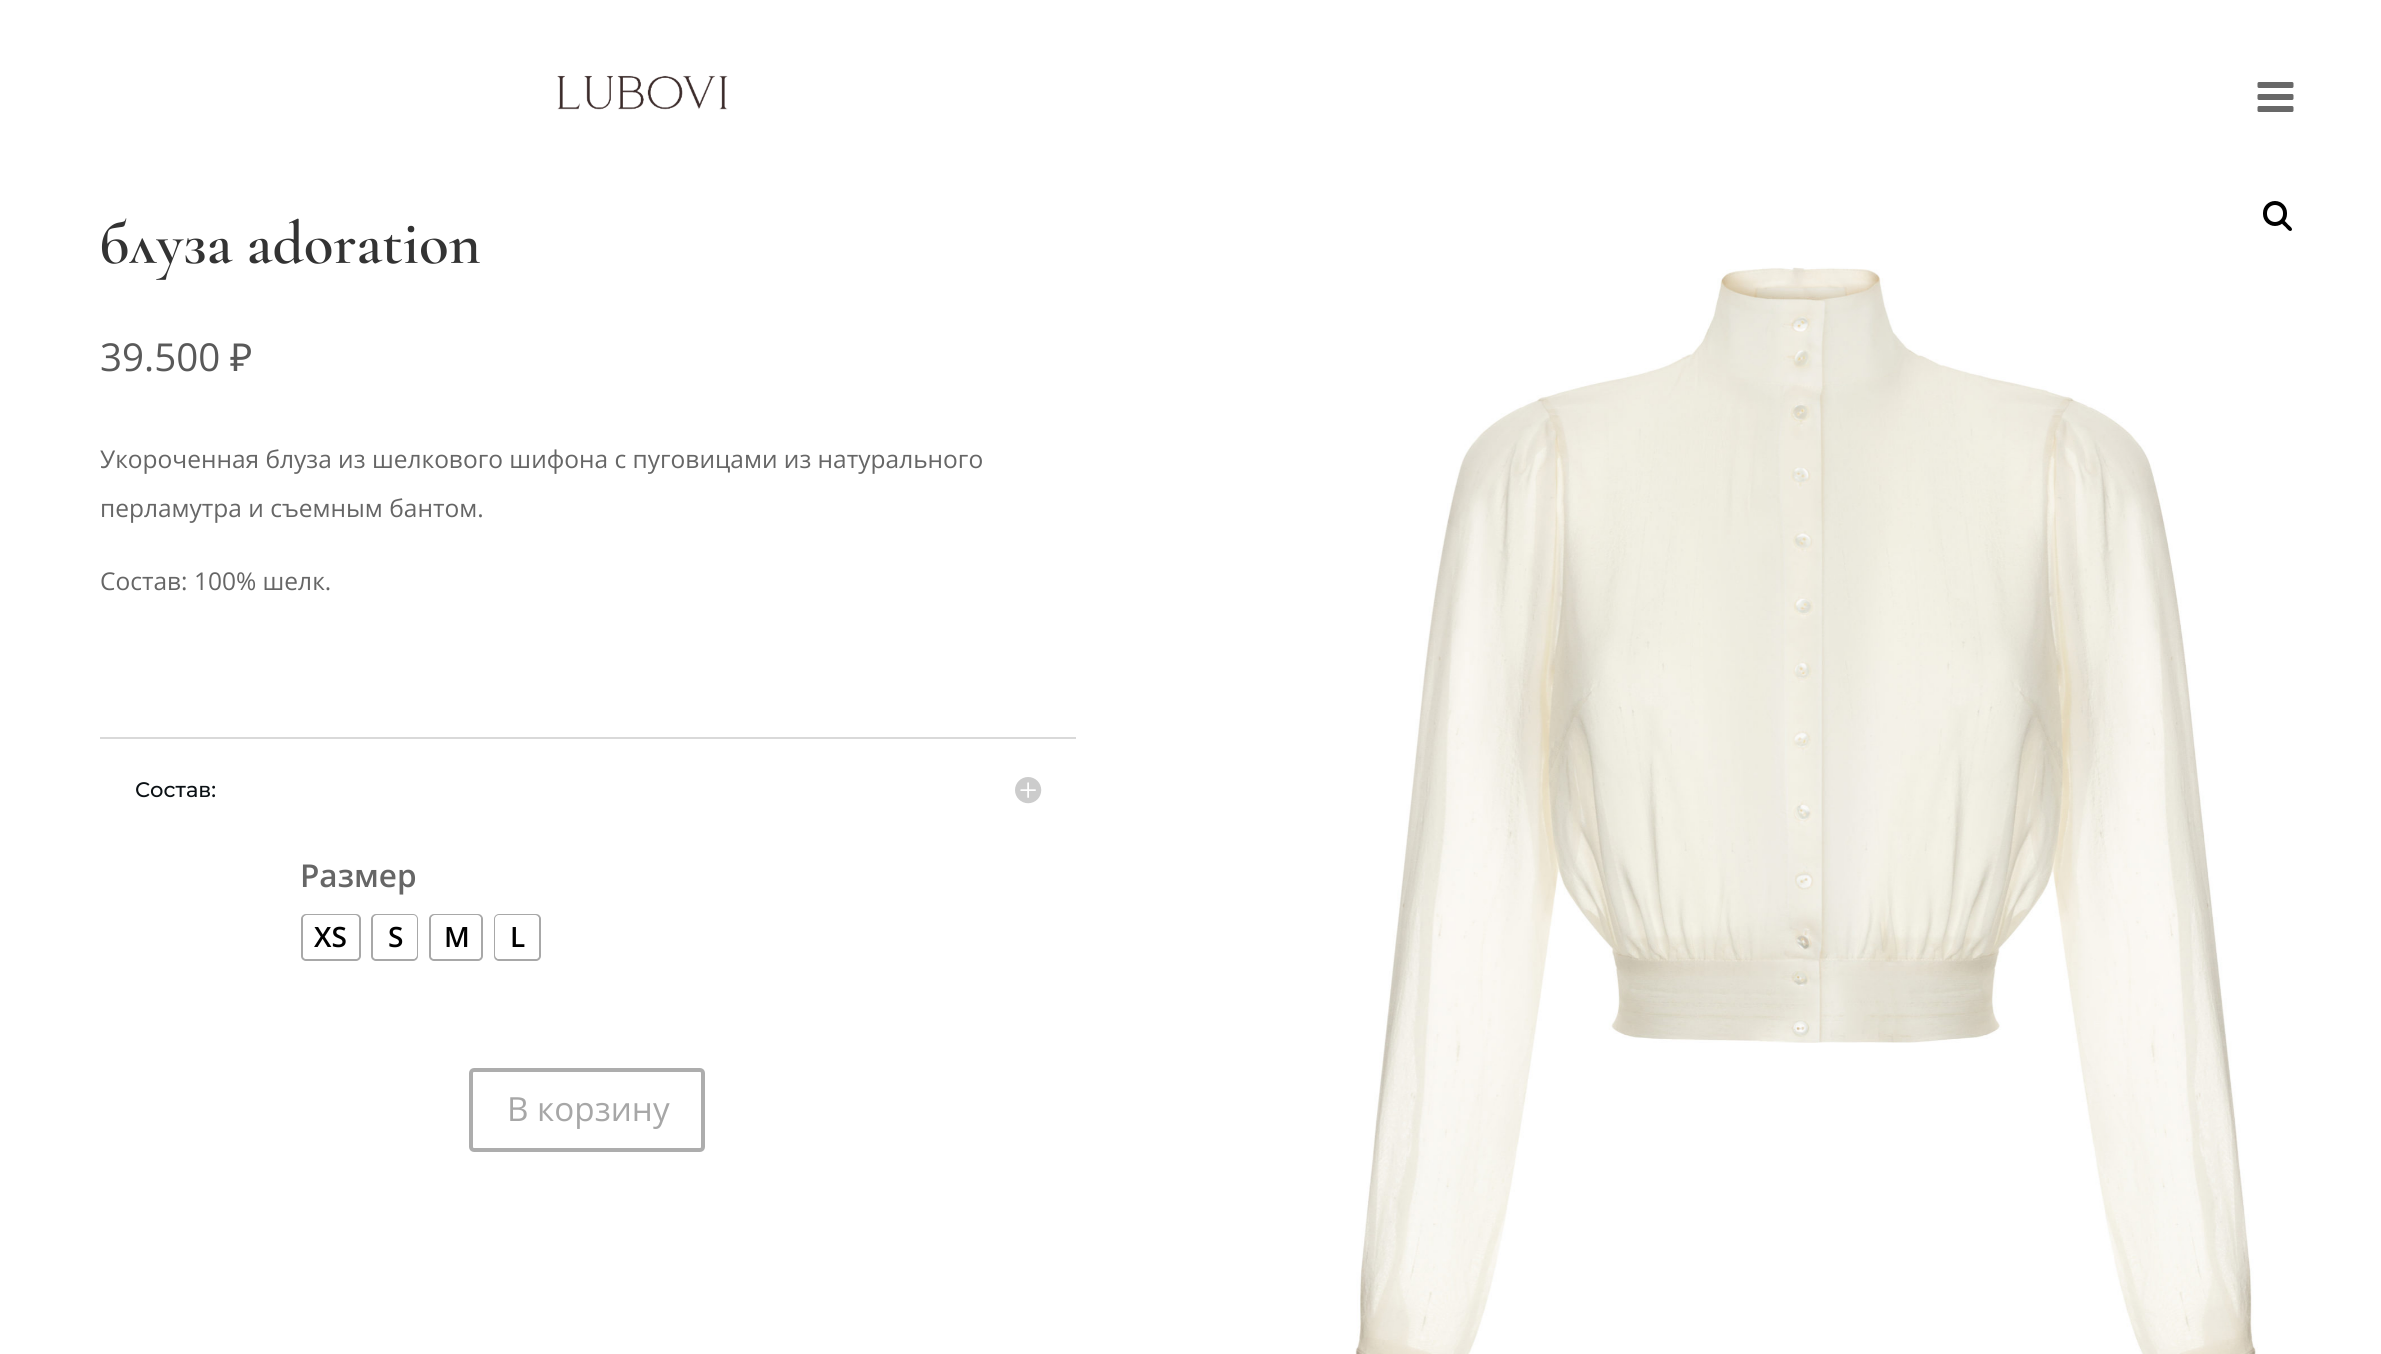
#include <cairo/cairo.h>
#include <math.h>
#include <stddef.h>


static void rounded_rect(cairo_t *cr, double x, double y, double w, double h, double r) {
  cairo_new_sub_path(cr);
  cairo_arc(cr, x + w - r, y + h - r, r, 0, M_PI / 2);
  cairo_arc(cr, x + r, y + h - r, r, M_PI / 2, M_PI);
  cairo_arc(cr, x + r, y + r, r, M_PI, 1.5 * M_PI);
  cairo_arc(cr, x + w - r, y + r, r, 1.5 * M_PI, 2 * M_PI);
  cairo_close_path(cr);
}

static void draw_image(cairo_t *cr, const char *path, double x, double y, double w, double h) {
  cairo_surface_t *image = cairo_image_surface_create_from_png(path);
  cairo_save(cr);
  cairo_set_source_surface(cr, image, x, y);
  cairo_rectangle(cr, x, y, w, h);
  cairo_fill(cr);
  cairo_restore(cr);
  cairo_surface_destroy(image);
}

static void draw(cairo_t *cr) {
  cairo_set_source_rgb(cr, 1, 1, 1);
  cairo_paint(cr);
  draw_image(cr, "images/1.png", 557, 75, 171, 35);
  draw_image(cr, "images/2.png", 2257, 82, 37, 30);
  cairo_set_source_rgb(cr, 217 / 255.0, 217 / 255.0, 217 / 255.0);
  cairo_rectangle(cr, 100, 737, 976, 2);
  cairo_fill(cr);
  draw_image(cr, "images/3.png", 1015, 777, 27, 27);
  rounded_rect(cr, 302, 915, 58, 45, 4);
  cairo_set_source_rgb(cr, 168 / 255.0, 168 / 255.0, 168 / 255.0);
  cairo_stroke(cr);
  cairo_set_source_rgb(cr, 1, 1, 1);
  rounded_rect(cr, 303, 915, 56, 44, 4);
  cairo_fill(cr);
  rounded_rect(cr, 372, 915, 45, 45, 4);
  cairo_set_source_rgb(cr, 168 / 255.0, 168 / 255.0, 168 / 255.0);
  cairo_stroke(cr);
  cairo_set_source_rgb(cr, 1, 1, 1);
  rounded_rect(cr, 373, 915, 44, 44, 4);
  cairo_fill(cr);
  rounded_rect(cr, 430, 915, 52, 45, 4);
  cairo_set_source_rgb(cr, 168 / 255.0, 168 / 255.0, 168 / 255.0);
  cairo_stroke(cr);
  cairo_set_source_rgb(cr, 1, 1, 1);
  rounded_rect(cr, 431, 915, 50, 44, 4);
  cairo_fill(cr);
  rounded_rect(cr, 495, 915, 45, 45, 4);
  cairo_set_source_rgb(cr, 168 / 255.0, 168 / 255.0, 168 / 255.0);
  cairo_stroke(cr);
  cairo_set_source_rgb(cr, 1, 1, 1);
  rounded_rect(cr, 495, 915, 44, 44, 4);
  cairo_fill(cr);
  rounded_rect(cr, 471, 1070, 232, 80, 3);
  cairo_set_source_rgb(cr, 173 / 255.0, 173 / 255.0, 173 / 255.0);
  cairo_set_line_width(cr, 4);
  cairo_stroke(cr);
  rounded_rect(cr, 2265, 203, 20, 21, 10);
  cairo_set_source_rgb(cr, 0, 0, 0);
  cairo_stroke(cr);
  cairo_new_path(cr);
  cairo_move_to(cr, 2282, 221);
  cairo_curve_to(cr, 2284, 219, 2287, 223.5, 2288, 224.5);
  cairo_curve_to(cr, 2289, 225.5, 2293.5, 228.5, 2291.5, 230.5);
  cairo_curve_to(cr, 2289.5, 232.5, 2286.5, 228, 2285.5, 227);
  cairo_curve_to(cr, 2284.5, 226, 2280, 223, 2282, 221);
  cairo_close_path(cr);
  cairo_fill(cr);
  draw_image(cr, "images/4.png", 1355, 267, 903, 1087);
  cairo_select_font_face(cr, "Cormorant Garamond SemiBold", CAIRO_FONT_SLANT_NORMAL, CAIRO_FONT_WEIGHT_NORMAL);
  cairo_set_font_size(cr, 61.25);
  cairo_set_source_rgb(cr, 51 / 255.0, 51 / 255.0, 51 / 255.0);
  cairo_move_to(cr, 100, 263);
  cairo_show_text(cr, "блуза adoration");
  cairo_select_font_face(cr, "Open Sans", CAIRO_FONT_SLANT_NORMAL, CAIRO_FONT_WEIGHT_NORMAL);
  cairo_set_font_size(cr, 38.5);
  cairo_set_source_rgb(cr, 89 / 255.0, 89 / 255.0, 89 / 255.0);
  cairo_move_to(cr, 100, 371);
  cairo_show_text(cr, "39.500");
  cairo_select_font_face(cr, "Noto Sans", CAIRO_FONT_SLANT_NORMAL, CAIRO_FONT_WEIGHT_NORMAL);
  cairo_move_to(cr, 230, 371);
  cairo_show_text(cr, "₽");
  cairo_select_font_face(cr, "Open Sans", CAIRO_FONT_SLANT_NORMAL, CAIRO_FONT_WEIGHT_NORMAL);
  cairo_set_font_size(cr, 24.5);
  cairo_set_source_rgb(cr, 102 / 255.0, 102 / 255.0, 102 / 255.0);
  cairo_move_to(cr, 100, 468);
  cairo_show_text(cr, "Укороченная блуза из шелкового шифона с пуговицами из натурального");
  cairo_move_to(cr, 100, 517);
  cairo_show_text(cr, "перламутра и съемным бантом.");
  cairo_move_to(cr, 100, 590);
  cairo_show_text(cr, "Состав: 100% шелк.");
  cairo_select_font_face(cr, "Montserrat Medium", CAIRO_FONT_SLANT_NORMAL, CAIRO_FONT_WEIGHT_NORMAL);
  cairo_set_font_size(cr, 21);
  cairo_set_source_rgb(cr, 11 / 255.0, 17 / 255.0, 21 / 255.0);
  cairo_move_to(cr, 135, 797);
  cairo_show_text(cr, "Состав:");
  cairo_select_font_face(cr, "Open Sans SemiBold", CAIRO_FONT_SLANT_NORMAL, CAIRO_FONT_WEIGHT_NORMAL);
  cairo_set_font_size(cr, 31.5);
  cairo_set_source_rgb(cr, 102 / 255.0, 102 / 255.0, 102 / 255.0);
  cairo_move_to(cr, 300, 887);
  cairo_show_text(cr, "Размер");
  cairo_set_font_size(cr, 28);
  cairo_set_source_rgb(cr, 0, 0, 0);
  cairo_move_to(cr, 314, 947);
  cairo_show_text(cr, "XS");
  cairo_move_to(cr, 388, 947);
  cairo_show_text(cr, "S");
  cairo_move_to(cr, 444, 947);
  cairo_show_text(cr, "M");
  cairo_move_to(cr, 510, 947);
  cairo_show_text(cr, "L");
  cairo_select_font_face(cr, "Open Sans", CAIRO_FONT_SLANT_NORMAL, CAIRO_FONT_WEIGHT_NORMAL);
  cairo_set_font_size(cr, 33.25);
  cairo_set_source_rgb(cr, 167 / 255.0, 167 / 255.0, 167 / 255.0);
  cairo_move_to(cr, 507, 1121);
  cairo_show_text(cr, "В корзину");
}

int main(void) {
  cairo_surface_t *surface = cairo_image_surface_create(CAIRO_FORMAT_RGB24, 2381, 1354);
  cairo_t *cr = cairo_create(surface);
  cairo_font_options_t *options = cairo_font_options_create();
  cairo_font_options_set_hint_metrics(options, CAIRO_HINT_METRICS_OFF);
  cairo_font_options_set_hint_style(options, CAIRO_HINT_STYLE_NONE);
  cairo_set_font_options(cr, options);
  cairo_set_miter_limit(cr, 4);
  draw(cr);
  cairo_surface_write_to_png(surface, "out.png");
  cairo_font_options_destroy(options);
  cairo_destroy(cr);
  cairo_surface_destroy(surface);
  return 0;
}
